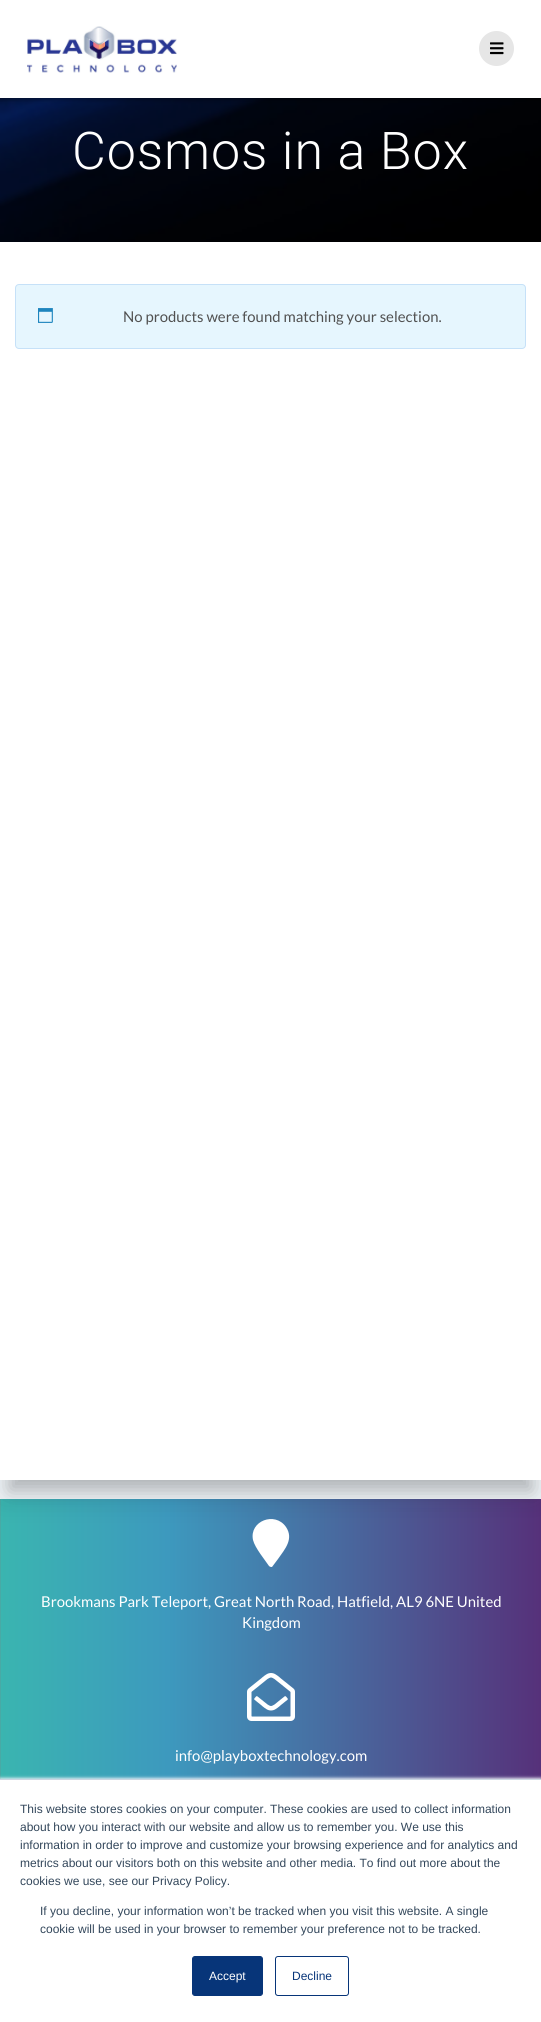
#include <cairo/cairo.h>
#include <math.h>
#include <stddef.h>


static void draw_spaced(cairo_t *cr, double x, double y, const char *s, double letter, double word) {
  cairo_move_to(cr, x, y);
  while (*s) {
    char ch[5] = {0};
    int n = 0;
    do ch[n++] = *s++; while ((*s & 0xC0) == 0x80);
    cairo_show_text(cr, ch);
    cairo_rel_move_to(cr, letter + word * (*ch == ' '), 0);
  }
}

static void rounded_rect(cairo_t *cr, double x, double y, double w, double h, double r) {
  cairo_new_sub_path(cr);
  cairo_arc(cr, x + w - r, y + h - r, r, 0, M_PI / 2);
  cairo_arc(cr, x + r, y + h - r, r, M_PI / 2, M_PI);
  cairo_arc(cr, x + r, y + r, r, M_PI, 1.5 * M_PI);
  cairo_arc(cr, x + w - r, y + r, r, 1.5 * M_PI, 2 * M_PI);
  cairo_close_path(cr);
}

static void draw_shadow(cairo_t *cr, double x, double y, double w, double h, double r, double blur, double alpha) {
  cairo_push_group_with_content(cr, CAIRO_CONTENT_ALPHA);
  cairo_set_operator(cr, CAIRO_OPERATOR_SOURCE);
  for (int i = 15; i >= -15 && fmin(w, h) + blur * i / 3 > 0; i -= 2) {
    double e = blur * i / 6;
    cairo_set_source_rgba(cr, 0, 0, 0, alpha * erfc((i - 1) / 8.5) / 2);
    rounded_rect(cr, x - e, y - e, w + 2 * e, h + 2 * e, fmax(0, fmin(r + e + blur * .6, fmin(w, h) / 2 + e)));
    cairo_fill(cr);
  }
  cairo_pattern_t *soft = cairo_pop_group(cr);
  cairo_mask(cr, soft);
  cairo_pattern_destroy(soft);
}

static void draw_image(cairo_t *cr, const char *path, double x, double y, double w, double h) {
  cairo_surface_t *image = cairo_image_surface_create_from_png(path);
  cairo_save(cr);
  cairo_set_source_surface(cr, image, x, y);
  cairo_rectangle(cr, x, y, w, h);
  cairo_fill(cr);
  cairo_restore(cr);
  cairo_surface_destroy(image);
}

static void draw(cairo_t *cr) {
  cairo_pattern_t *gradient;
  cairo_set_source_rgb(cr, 245 / 255.0, 250 / 255.0, 253 / 255.0);
  cairo_paint(cr);
  draw_image(cr, "images/3.png", 0, 98, 541, 144);
  cairo_set_source_rgb(cr, 0, 0, 0);
  draw_shadow(cr, -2, -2, 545, 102, 0, 2.5, 0.33);
  cairo_set_source_rgb(cr, 1, 1, 1);
  cairo_rectangle(cr, 0, 0, 541, 98);
  cairo_fill(cr);
  draw_image(cr, "images/1.png", 27, 26, 150, 47);
  cairo_set_source_rgb(cr, 230 / 255.0, 230 / 255.0, 230 / 255.0);
  cairo_arc(cr, 496.5, 48.5, 17.5, 0, 2 * M_PI);
  cairo_fill(cr);
  draw_image(cr, "images/2.png", 490, 42, 14, 13);
  gradient = cairo_pattern_create_linear(0, 1761, 541, 1761);
  cairo_pattern_add_color_stop_rgba(gradient, 0, 58 / 255.0, 181 / 255.0, 176 / 255.0, 1);
  cairo_pattern_add_color_stop_rgba(gradient, 0.31, 61 / 255.0, 153 / 255.0, 190 / 255.0, 1);
  cairo_pattern_add_color_stop_rgba(gradient, 1, 86 / 255.0, 49 / 255.0, 122 / 255.0, 1);
  cairo_set_source(cr, gradient);
  cairo_pattern_destroy(gradient);
  cairo_rectangle(cr, 1, 1499, 540, 280);
  cairo_fill(cr);
  cairo_set_source_rgb(cr, 72 / 255.0, 170 / 255.0, 166 / 255.0);
  cairo_rectangle(cr, 0, 1499, 1, 287);
  cairo_fill(cr);
  cairo_set_source_rgb(cr, 1, 1, 1);
  cairo_new_path(cr);
  cairo_move_to(cr, 269, 1566);
  cairo_curve_to(cr, 265, 1560, 255, 1548, 253, 1540);
  cairo_curve_to(cr, 249, 1521, 275, 1511, 286, 1527);
  cairo_curve_to(cr, 294, 1539, 285, 1549, 278, 1559);
  cairo_line_to(cr, 272, 1567);
  cairo_curve_to(cr, 271, 1567, 270, 1567, 269, 1566);
  cairo_close_path(cr);
  cairo_fill(cr);
  cairo_set_source_rgb(cr, 0, 0, 0);
  draw_shadow(cr, 0, 262, 541, 1238, 0, 15, 0.08);
  cairo_set_source_rgb(cr, 49 / 255.0, 52 / 255.0, 57 / 255.0);
  draw_shadow(cr, 10, 272, 521, 1218, 0, 10, 0.3);
  cairo_set_source_rgb(cr, 1, 1, 1);
  cairo_rectangle(cr, 0, 242, 541, 1238);
  cairo_fill(cr);
  cairo_set_source_rgb(cr, 230 / 255.0, 246 / 255.0, 254 / 255.0);
  rounded_rect(cr, 15, 284, 511, 65, 4);
  cairo_fill(cr);
  rounded_rect(cr, 15.5, 284.5, 510, 64, 3.5);
  cairo_set_source_rgba(cr, 74 / 255.0, 144 / 255.0, 226 / 255.0, 0.2);
  cairo_set_line_width(cr, 1);
  cairo_stroke(cr);
  draw_image(cr, "images/4.png", 38, 308, 15, 15);
  draw_image(cr, "images/5.png", 247, 1673, 48, 48);
  cairo_set_source_rgb(cr, 234 / 255.0, 240 / 255.0, 246 / 255.0);
  draw_shadow(cr, 0, 1778, 541, 243, 0, 1.5, 1);
  cairo_set_source_rgb(cr, 1, 1, 1);
  cairo_rectangle(cr, 0, 1780, 541, 242);
  cairo_fill(cr);
  cairo_set_source_rgb(cr, 203 / 255.0, 214 / 255.0, 226 / 255.0);
  cairo_rectangle(cr, 0, 1779, 541, 1);
  cairo_fill(cr);
  cairo_set_source_rgb(cr, 7 / 255.0, 53 / 255.0, 121 / 255.0);
  rounded_rect(cr, 192.5, 1956.5, 70, 39, 2.5);
  cairo_fill_preserve(cr);
  cairo_stroke(cr);
  rounded_rect(cr, 275.5, 1956.5, 73, 39, 2.5);
  cairo_stroke(cr);
  cairo_select_font_face(cr, "Roboto Light", CAIRO_FONT_SLANT_NORMAL, CAIRO_FONT_WEIGHT_NORMAL);
  cairo_set_font_size(cr, 52);
  cairo_set_source_rgb(cr, 1, 1, 1);
  draw_spaced(cr, 72, 169, "Cosmos in a Box", 0.9, 0);
  cairo_select_font_face(cr, "Lato", CAIRO_FONT_SLANT_NORMAL, CAIRO_FONT_WEIGHT_NORMAL);
  cairo_set_font_size(cr, 14.9);
  cairo_set_source_rgb(cr, 81 / 255.0, 81 / 255.0, 81 / 255.0);
  cairo_move_to(cr, 123, 322);
  cairo_show_text(cr, "No products were found matching your selection.");
  cairo_set_source_rgb(cr, 1, 1, 1);
  cairo_move_to(cr, 41, 1607);
  cairo_show_text(cr, "Brookmans Park Teleport, Great North Road, Hatfield, AL9 6NE United");
  cairo_move_to(cr, 242, 1628);
  cairo_show_text(cr, "Kingdom");
  cairo_move_to(cr, 175, 1761);
  cairo_show_text(cr, "info@playboxtechnology.com");
  cairo_select_font_face(cr, "Liberation Sans", CAIRO_FONT_SLANT_NORMAL, CAIRO_FONT_WEIGHT_NORMAL);
  cairo_set_font_size(cr, 12);
  cairo_set_source_rgb(cr, 51 / 255.0, 71 / 255.0, 91 / 255.0);
  cairo_move_to(cr, 20, 1813);
  cairo_show_text(cr, "This website stores cookies on your computer. These cookies are used to collect information");
  cairo_move_to(cr, 20, 1831);
  cairo_show_text(cr, "about how you interact with our website and allow us to remember you. We use this");
  cairo_move_to(cr, 20, 1849);
  cairo_show_text(cr, "information in order to improve and customize your browsing experience and for analytics and");
  cairo_move_to(cr, 20, 1867);
  cairo_show_text(cr, "metrics about our visitors both on this website and other media. To find out more about the");
  cairo_move_to(cr, 20, 1885);
  cairo_show_text(cr, "cookies we use, see our Privacy Policy.");
  cairo_move_to(cr, 40, 1915);
  cairo_show_text(cr, "If you decline, your information won’t be tracked when you visit this website. A single");
  cairo_move_to(cr, 40, 1933);
  cairo_show_text(cr, "cookie will be used in your browser to remember your preference not to be tracked.");
  cairo_set_source_rgb(cr, 1, 1, 1);
  cairo_move_to(cr, 209, 1980);
  cairo_show_text(cr, "Accept");
  cairo_set_source_rgb(cr, 7 / 255.0, 53 / 255.0, 121 / 255.0);
  cairo_move_to(cr, 292, 1980);
  cairo_show_text(cr, "Decline");
}

int main(void) {
  cairo_surface_t *surface = cairo_image_surface_create(CAIRO_FORMAT_RGB24, 541, 2022);
  cairo_t *cr = cairo_create(surface);
  cairo_font_options_t *options = cairo_font_options_create();
  cairo_font_options_set_hint_metrics(options, CAIRO_HINT_METRICS_OFF);
  cairo_font_options_set_hint_style(options, CAIRO_HINT_STYLE_NONE);
  cairo_set_font_options(cr, options);
  cairo_set_miter_limit(cr, 4);
  draw(cr);
  cairo_surface_write_to_png(surface, "out.png");
  cairo_font_options_destroy(options);
  cairo_destroy(cr);
  cairo_surface_destroy(surface);
  return 0;
}
